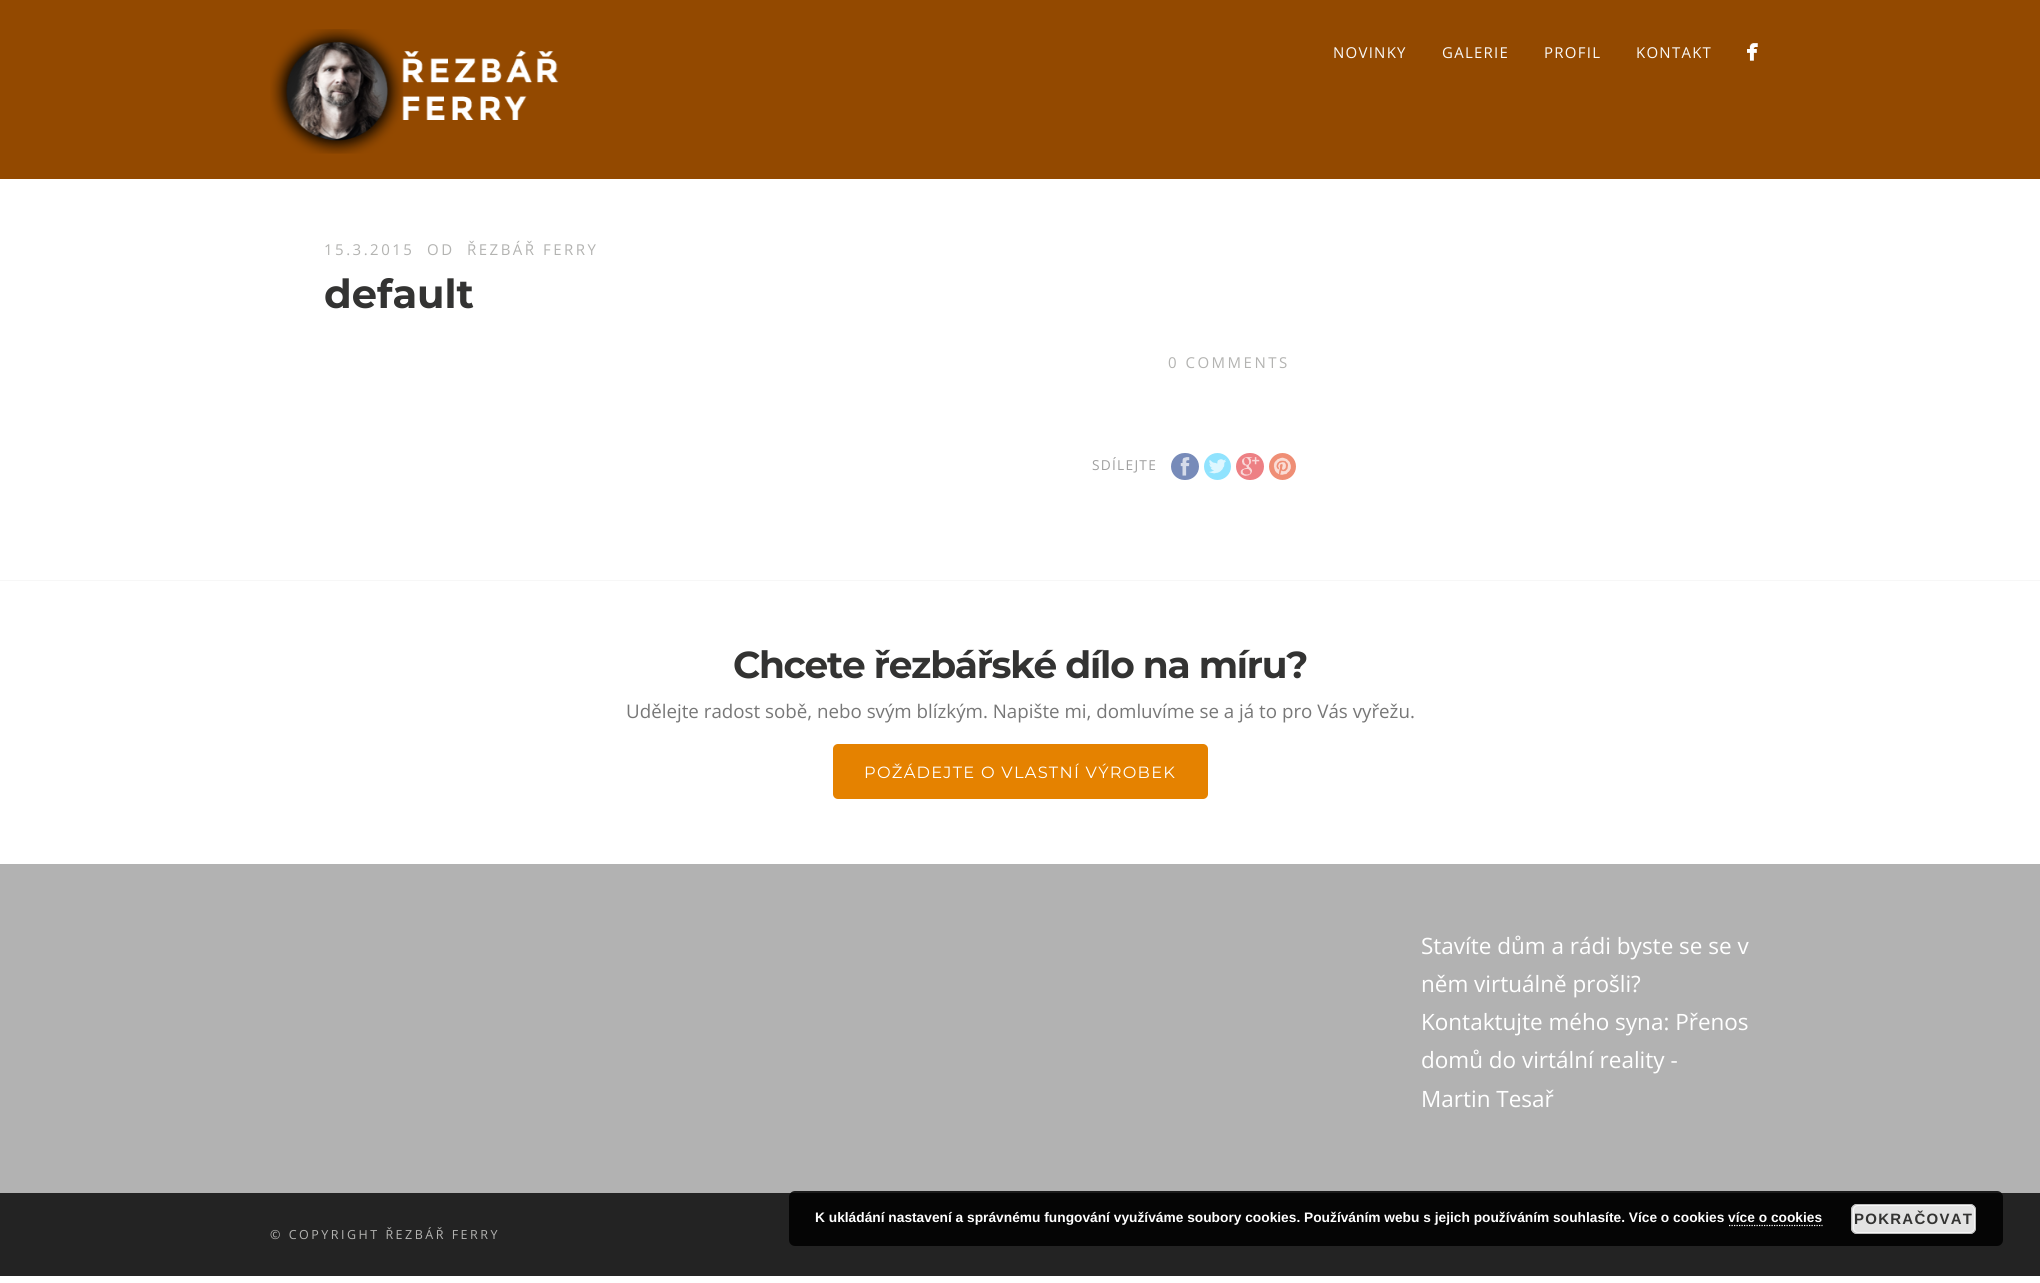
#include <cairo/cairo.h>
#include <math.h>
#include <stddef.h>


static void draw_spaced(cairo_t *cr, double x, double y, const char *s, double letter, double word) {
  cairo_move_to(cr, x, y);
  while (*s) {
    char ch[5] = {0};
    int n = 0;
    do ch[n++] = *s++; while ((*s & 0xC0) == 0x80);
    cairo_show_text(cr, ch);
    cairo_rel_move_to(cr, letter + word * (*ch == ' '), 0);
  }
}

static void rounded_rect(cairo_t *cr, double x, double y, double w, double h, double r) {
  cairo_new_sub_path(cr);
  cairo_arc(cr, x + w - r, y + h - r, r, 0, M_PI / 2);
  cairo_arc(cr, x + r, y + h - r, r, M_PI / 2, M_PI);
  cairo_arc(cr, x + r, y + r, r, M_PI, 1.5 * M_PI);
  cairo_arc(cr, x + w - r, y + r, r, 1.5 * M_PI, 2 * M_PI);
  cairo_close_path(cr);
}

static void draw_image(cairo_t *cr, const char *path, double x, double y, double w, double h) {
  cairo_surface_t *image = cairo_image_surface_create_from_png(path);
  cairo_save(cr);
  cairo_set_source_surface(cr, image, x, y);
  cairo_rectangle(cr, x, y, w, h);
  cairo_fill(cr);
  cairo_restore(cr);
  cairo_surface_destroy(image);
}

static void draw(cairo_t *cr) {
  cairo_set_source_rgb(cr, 1, 1, 1);
  cairo_paint(cr);
  cairo_set_source_rgb(cr, 147 / 255.0, 73 / 255.0, 0);
  cairo_rectangle(cr, 0, 0, 2040, 179);
  cairo_fill(cr);
  draw_image(cr, "images/1.png", 270, 29, 289, 125);
  draw_image(cr, "images/2.png", 1747, 43, 11, 18);
  cairo_set_source_rgb(cr, 119 / 255.0, 139 / 255.0, 185 / 255.0);
  rounded_rect(cr, 1171, 453, 28, 27, 13.5);
  cairo_fill(cr);
  draw_image(cr, "images/3.png", 1180, 457, 10, 19);
  cairo_set_source_rgb(cr, 144 / 255.0, 227 / 255.0, 254 / 255.0);
  cairo_arc(cr, 1217.5, 466.5, 13.5, 0, 2 * M_PI);
  cairo_fill(cr);
  draw_image(cr, "images/4.png", 1209, 459, 17, 15);
  cairo_set_source_rgb(cr, 237 / 255.0, 128 / 255.0, 132 / 255.0);
  rounded_rect(cr, 1236, 453, 28, 27, 13.5);
  cairo_fill(cr);
  draw_image(cr, "images/5.png", 1240, 457, 20, 19);
  cairo_set_source_rgb(cr, 239 / 255.0, 142 / 255.0, 117 / 255.0);
  cairo_arc(cr, 1282.5, 466.5, 13.5, 0, 2 * M_PI);
  cairo_fill(cr);
  draw_image(cr, "images/6.png", 1273, 457, 18, 18);
  cairo_set_source_rgb(cr, 178 / 255.0, 178 / 255.0, 178 / 255.0);
  cairo_rectangle(cr, 0, 864, 2040, 329);
  cairo_fill(cr);
  cairo_set_source_rgb(cr, 247 / 255.0, 247 / 255.0, 247 / 255.0);
  cairo_rectangle(cr, 0, 580, 2040, 1);
  cairo_fill(cr);
  cairo_set_source_rgb(cr, 229 / 255.0, 130 / 255.0, 0);
  rounded_rect(cr, 833, 744, 375, 55, 5);
  cairo_fill(cr);
  cairo_set_source_rgb(cr, 35 / 255.0, 35 / 255.0, 35 / 255.0);
  cairo_rectangle(cr, 0, 1193, 2040, 83);
  cairo_fill(cr);
  cairo_set_source_rgba(cr, 0, 0, 0, 0.85);
  rounded_rect(cr, 789, 1191, 1214, 55, 6);
  cairo_fill(cr);
  cairo_set_source_rgb(cr, 227 / 255.0, 227 / 255.0, 227 / 255.0);
  rounded_rect(cr, 1851, 1204, 125, 30, 6);
  cairo_fill(cr);
  rounded_rect(cr, 1853.5, 1205.5, 121, 27, 4.5);
  cairo_set_source_rgb(cr, 246 / 255.0, 246 / 255.0, 246 / 255.0);
  cairo_set_line_width(cr, 1);
  cairo_stroke(cr);
  rounded_rect(cr, 1851.5, 1204.5, 124, 29, 5.5);
  cairo_set_source_rgb(cr, 187 / 255.0, 187 / 255.0, 187 / 255.0);
  cairo_stroke(cr);
  cairo_new_path(cr);
  cairo_move_to(cr, 1729, 1225.5);
  cairo_line_to(cr, 1822.5, 1225.5);
  cairo_set_source_rgb(cr, 1, 1, 1);
  cairo_set_line_width(cr, 1.2);
  cairo_set_dash(cr, (double[]){1.25, 1.25}, 2, 0);
  cairo_stroke(cr);
  cairo_select_font_face(cr, "Open Sans", CAIRO_FONT_SLANT_NORMAL, CAIRO_FONT_WEIGHT_NORMAL);
  cairo_set_font_size(cr, 15);
  cairo_set_source_rgb(cr, 249 / 255.0, 249 / 255.0, 249 / 255.0);
  draw_spaced(cr, 1333, 58, "NOVINKY", 1.25, 0);
  draw_spaced(cr, 1442, 58, "GALERIE", 1.25, 0);
  draw_spaced(cr, 1544, 58, "PROFIL", 1.25, 0);
  draw_spaced(cr, 1636, 58, "KONTAKT", 1.25, 0);
  cairo_set_source_rgb(cr, 179 / 255.0, 179 / 255.0, 177 / 255.0);
  draw_spaced(cr, 324, 255, "15.3.2015", 2.5, 0);
  draw_spaced(cr, 427, 255, "OD", 2.5, 0);
  draw_spaced(cr, 467, 255, "ŘEZBÁŘ FERRY", 2.5, 0);
  cairo_select_font_face(cr, "Montserrat", CAIRO_FONT_SLANT_NORMAL, CAIRO_FONT_WEIGHT_BOLD);
  cairo_set_font_size(cr, 40);
  cairo_set_source_rgb(cr, 51 / 255.0, 51 / 255.0, 50 / 255.0);
  cairo_move_to(cr, 324, 308);
  cairo_show_text(cr, "default");
  cairo_select_font_face(cr, "Open Sans", CAIRO_FONT_SLANT_NORMAL, CAIRO_FONT_WEIGHT_NORMAL);
  cairo_set_font_size(cr, 15);
  cairo_set_source_rgb(cr, 179 / 255.0, 179 / 255.0, 177 / 255.0);
  draw_spaced(cr, 1168, 368, "0 COMMENTS", 2.5, 0);
  cairo_set_font_size(cr, 13.75);
  cairo_set_source_rgb(cr, 160 / 255.0, 160 / 255.0, 160 / 255.0);
  draw_spaced(cr, 1092, 470, "SDÍLEJTE", 1.25, 0);
  cairo_select_font_face(cr, "Montserrat", CAIRO_FONT_SLANT_NORMAL, CAIRO_FONT_WEIGHT_BOLD);
  cairo_set_font_size(cr, 37.5);
  cairo_set_source_rgb(cr, 51 / 255.0, 51 / 255.0, 50 / 255.0);
  draw_spaced(cr, 733, 678, "Chcete řezbářské dílo na míru?", -1.25, 0);
  cairo_select_font_face(cr, "Open Sans", CAIRO_FONT_SLANT_NORMAL, CAIRO_FONT_WEIGHT_NORMAL);
  cairo_set_font_size(cr, 18.75);
  cairo_set_source_rgb(cr, 119 / 255.0, 119 / 255.0, 119 / 255.0);
  cairo_move_to(cr, 626, 718);
  cairo_show_text(cr, "Udělejte radost sobě, nebo svým blízkým. Napište mi, domluvíme se a já to pro Vás vyřežu.");
  cairo_select_font_face(cr, "Montserrat", CAIRO_FONT_SLANT_NORMAL, CAIRO_FONT_WEIGHT_NORMAL);
  cairo_set_font_size(cr, 16.25);
  cairo_set_source_rgb(cr, 1, 1, 1);
  draw_spaced(cr, 864, 778, "POŽÁDEJTE O VLASTNÍ VÝROBEK", 1.25, 0);
  cairo_select_font_face(cr, "Open Sans", CAIRO_FONT_SLANT_NORMAL, CAIRO_FONT_WEIGHT_NORMAL);
  cairo_set_font_size(cr, 22.5);
  cairo_move_to(cr, 1421, 954);
  cairo_show_text(cr, "Stavíte dům a rádi byste se se v");
  cairo_move_to(cr, 1421, 992);
  cairo_show_text(cr, "něm virtuálně prošli?");
  cairo_move_to(cr, 1421, 1030);
  cairo_show_text(cr, "Kontaktujte mého syna: Přenos");
  cairo_move_to(cr, 1421, 1068);
  cairo_show_text(cr, "domů do virtální reality -");
  cairo_move_to(cr, 1421, 1107);
  cairo_show_text(cr, "Martin Tesař");
  cairo_set_font_size(cr, 12.5);
  cairo_set_source_rgb(cr, 179 / 255.0, 179 / 255.0, 177 / 255.0);
  draw_spaced(cr, 270, 1239, "© COPYRIGHT ŘEZBÁŘ FERRY", 2.5, 0);
  cairo_select_font_face(cr, "Liberation Sans", CAIRO_FONT_SLANT_NORMAL, CAIRO_FONT_WEIGHT_BOLD);
  cairo_set_font_size(cr, 13.75);
  cairo_set_source_rgb(cr, 1, 1, 1);
  cairo_move_to(cr, 815, 1222);
  cairo_show_text(cr, "K ukládání nastavení a správnému fungování využíváme soubory cookies. Používáním webu s jejich používáním souhlasíte. Více o cookies více o cookies");
  cairo_set_font_size(cr, 15);
  cairo_set_source_rgb(cr, 51 / 255.0, 51 / 255.0, 50 / 255.0);
  draw_spaced(cr, 1854, 1224, "POKRAČOVAT", 1.25, 0);
}

int main(void) {
  cairo_surface_t *surface = cairo_image_surface_create(CAIRO_FORMAT_RGB24, 2040, 1283);
  cairo_t *cr = cairo_create(surface);
  cairo_font_options_t *options = cairo_font_options_create();
  cairo_font_options_set_hint_metrics(options, CAIRO_HINT_METRICS_OFF);
  cairo_font_options_set_hint_style(options, CAIRO_HINT_STYLE_NONE);
  cairo_set_font_options(cr, options);
  cairo_set_miter_limit(cr, 4);
  draw(cr);
  cairo_surface_write_to_png(surface, "out.png");
  cairo_font_options_destroy(options);
  cairo_destroy(cr);
  cairo_surface_destroy(surface);
  return 0;
}
